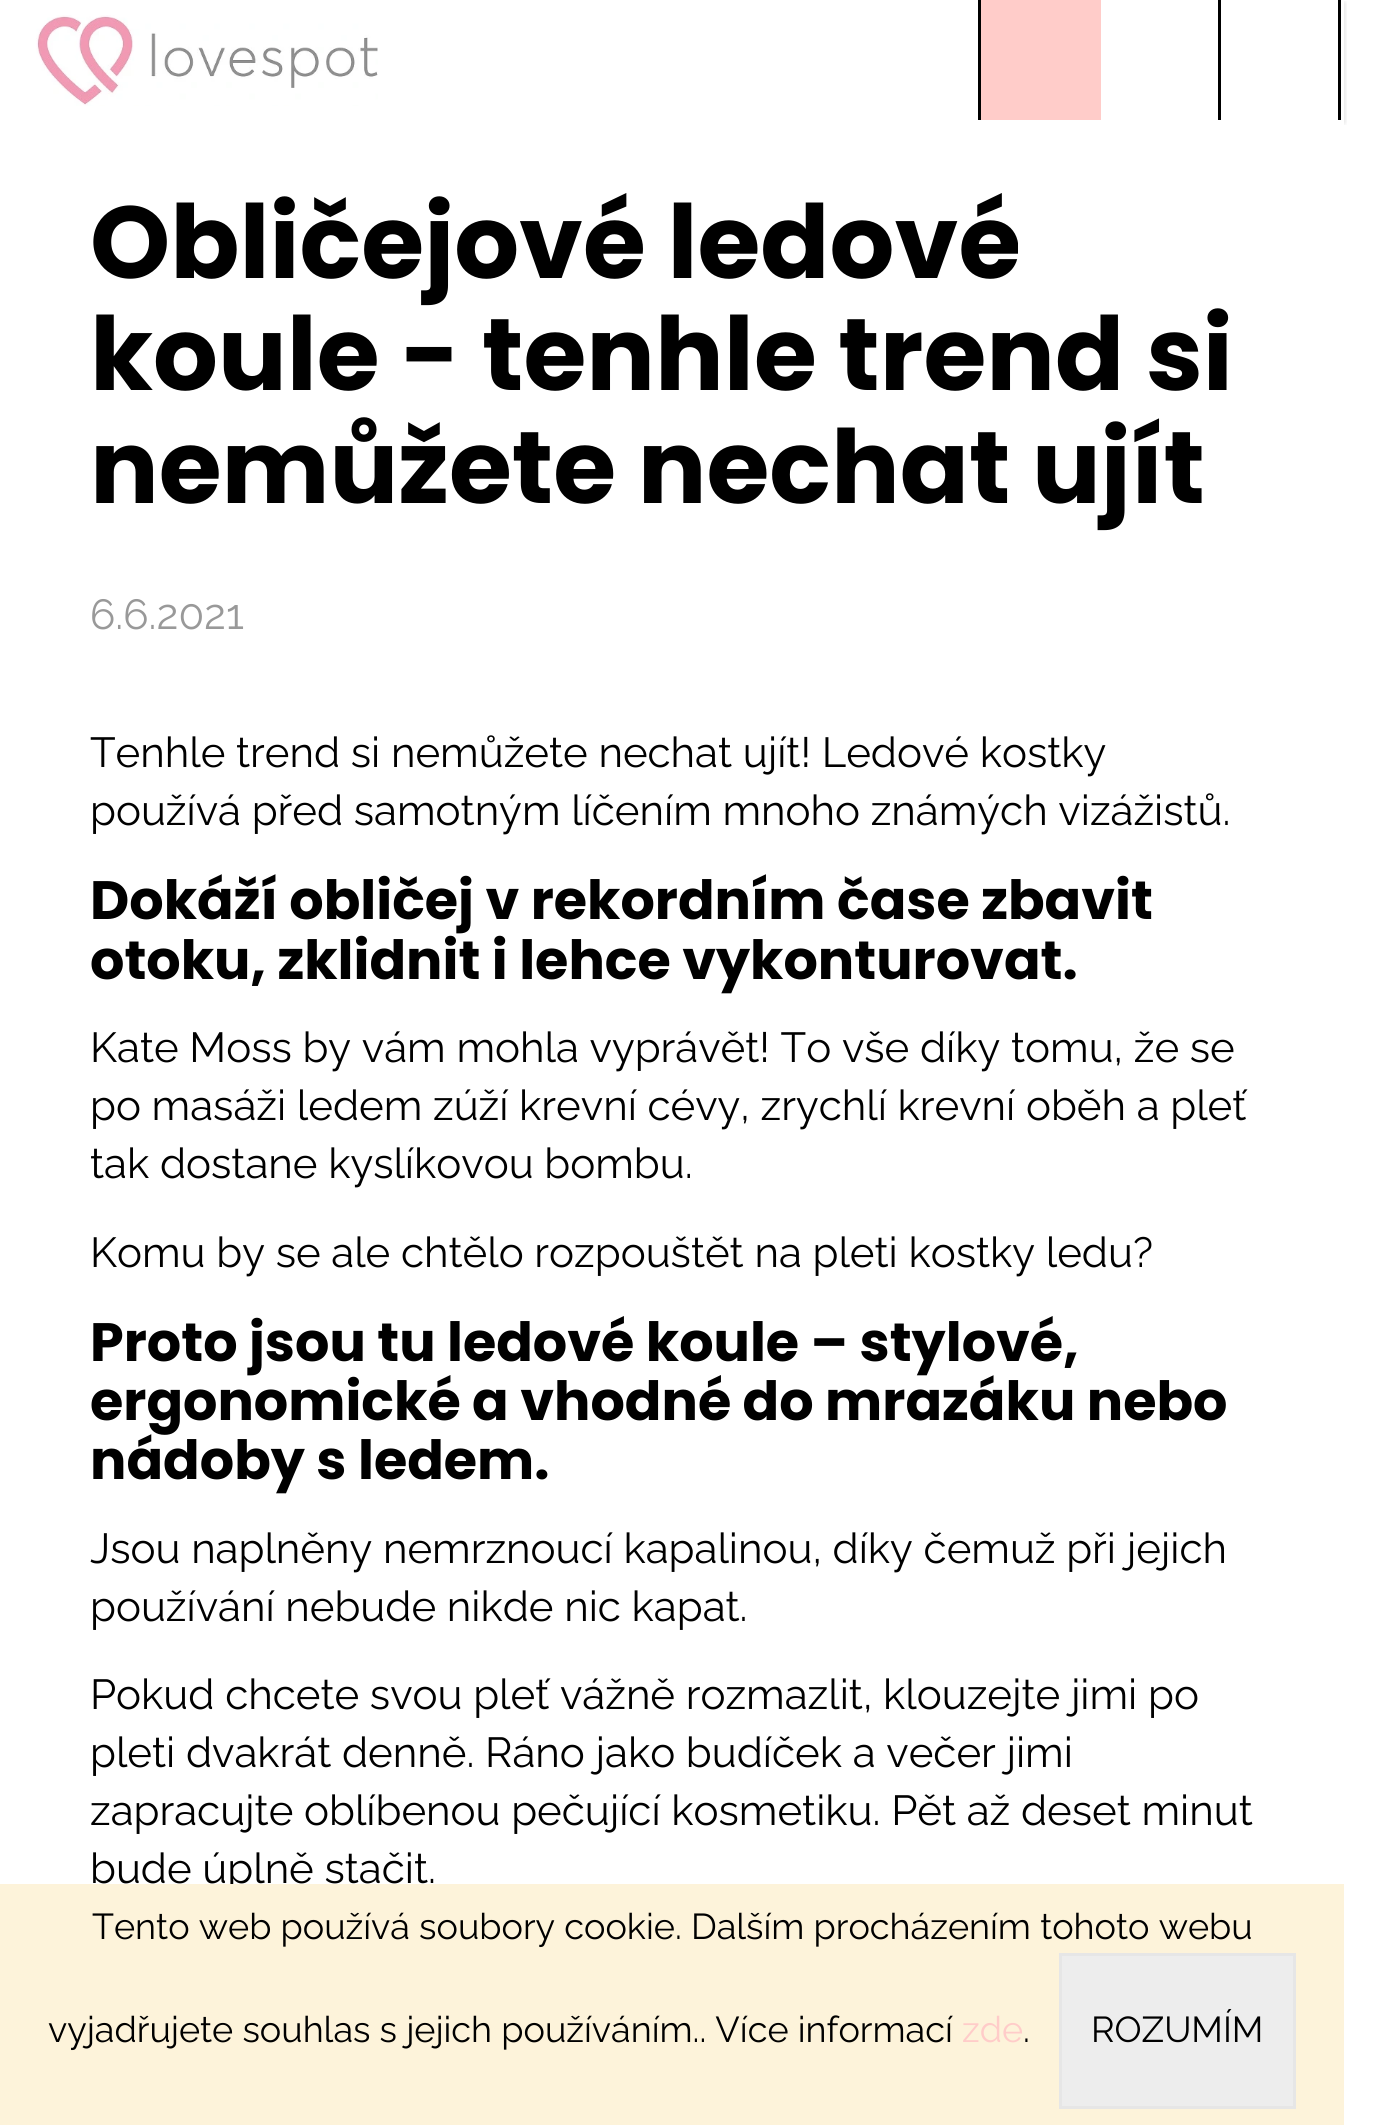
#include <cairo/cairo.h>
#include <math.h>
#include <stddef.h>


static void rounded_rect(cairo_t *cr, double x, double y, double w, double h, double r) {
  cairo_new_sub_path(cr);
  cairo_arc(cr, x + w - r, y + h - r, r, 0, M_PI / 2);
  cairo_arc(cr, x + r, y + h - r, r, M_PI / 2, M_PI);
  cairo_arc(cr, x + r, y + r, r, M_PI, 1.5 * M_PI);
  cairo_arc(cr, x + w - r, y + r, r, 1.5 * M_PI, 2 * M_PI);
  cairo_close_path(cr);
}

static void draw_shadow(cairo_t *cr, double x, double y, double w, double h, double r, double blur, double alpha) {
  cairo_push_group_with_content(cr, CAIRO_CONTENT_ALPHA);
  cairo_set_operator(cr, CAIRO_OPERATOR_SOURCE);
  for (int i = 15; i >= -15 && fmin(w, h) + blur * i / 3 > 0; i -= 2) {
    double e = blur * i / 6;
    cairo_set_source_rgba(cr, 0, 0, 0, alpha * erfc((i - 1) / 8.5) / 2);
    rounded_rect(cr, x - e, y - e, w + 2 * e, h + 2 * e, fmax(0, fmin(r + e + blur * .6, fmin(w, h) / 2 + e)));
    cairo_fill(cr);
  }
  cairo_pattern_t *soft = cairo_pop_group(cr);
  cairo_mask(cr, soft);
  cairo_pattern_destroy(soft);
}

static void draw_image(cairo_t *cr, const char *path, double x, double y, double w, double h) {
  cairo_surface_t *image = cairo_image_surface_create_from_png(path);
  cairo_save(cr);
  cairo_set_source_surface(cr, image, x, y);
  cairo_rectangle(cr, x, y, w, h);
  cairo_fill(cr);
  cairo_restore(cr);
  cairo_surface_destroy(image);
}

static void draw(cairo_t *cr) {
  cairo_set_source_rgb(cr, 1, 1, 1);
  cairo_paint(cr);
  cairo_save(cr);
  cairo_rectangle(cr, 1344, 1, 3, 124);
  cairo_clip(cr);
  cairo_set_source_rgb(cr, 0, 0, 0);
  draw_shadow(cr, 0, 3, 1344, 120, 0, 3, 0.16);
  cairo_restore(cr);
  draw_image(cr, "images/1.png", 36, 15, 342, 91);
  cairo_set_source_rgb(cr, 0, 0, 0);
  cairo_rectangle(cr, 978, 0, 3, 120);
  cairo_fill(cr);
  cairo_set_source_rgb(cr, 1, 204 / 255.0, 201 / 255.0);
  cairo_rectangle(cr, 981, 0, 120, 120);
  cairo_fill(cr);
  cairo_set_source_rgb(cr, 0, 0, 0);
  cairo_rectangle(cr, 1218, 0, 3, 120);
  cairo_fill(cr);
  cairo_rectangle(cr, 1338, 0, 3, 120);
  cairo_fill(cr);
  cairo_set_source_rgb(cr, 1, 1, 1);
  cairo_rectangle(cr, 0, 120, 1344, 8);
  cairo_fill(cr);
  cairo_select_font_face(cr, "Poppins", CAIRO_FONT_SLANT_NORMAL, CAIRO_FONT_WEIGHT_BOLD);
  cairo_set_font_size(cr, 102);
  cairo_set_source_rgb(cr, 0, 0, 0);
  cairo_move_to(cr, 90, 278);
  cairo_show_text(cr, "Obličejové ledové");
  cairo_move_to(cr, 90, 390);
  cairo_show_text(cr, "koule - tenhle trend si");
  cairo_move_to(cr, 90, 503);
  cairo_show_text(cr, "nemůžete nechat ujít");
  cairo_select_font_face(cr, "Raleway Thin", CAIRO_FONT_SLANT_NORMAL, CAIRO_FONT_WEIGHT_NORMAL);
  cairo_set_font_size(cr, 42);
  cairo_set_source_rgb(cr, 153 / 255.0, 153 / 255.0, 153 / 255.0);
  cairo_move_to(cr, 90, 629);
  cairo_show_text(cr, "6.6.2021");
  cairo_set_source_rgb(cr, 0, 0, 0);
  cairo_move_to(cr, 90, 767);
  cairo_show_text(cr, "Tenhle trend si nemůžete nechat ujít! Ledové kostky");
  cairo_move_to(cr, 90, 825);
  cairo_show_text(cr, "používá před samotným líčením mnoho známých vizážistů.");
  cairo_select_font_face(cr, "Poppins", CAIRO_FONT_SLANT_NORMAL, CAIRO_FONT_WEIGHT_BOLD);
  cairo_set_font_size(cr, 54);
  cairo_move_to(cr, 90, 919);
  cairo_show_text(cr, "Dokáží obličej v rekordním čase zbavit");
  cairo_move_to(cr, 90, 979);
  cairo_show_text(cr, "otoku, zklidnit i lehce vykonturovat.");
  cairo_select_font_face(cr, "Raleway Thin", CAIRO_FONT_SLANT_NORMAL, CAIRO_FONT_WEIGHT_NORMAL);
  cairo_set_font_size(cr, 42);
  cairo_move_to(cr, 90, 1062);
  cairo_show_text(cr, "Kate Moss by vám mohla vyprávět! To vše díky tomu, že se");
  cairo_move_to(cr, 90, 1120);
  cairo_show_text(cr, "po masáži ledem zúží krevní cévy, zrychlí krevní oběh a pleť");
  cairo_move_to(cr, 90, 1178);
  cairo_show_text(cr, "tak dostane kyslíkovou bombu.");
  cairo_move_to(cr, 90, 1267);
  cairo_show_text(cr, "Komu by se ale chtělo rozpouštět na pleti kostky ledu?");
  cairo_select_font_face(cr, "Poppins", CAIRO_FONT_SLANT_NORMAL, CAIRO_FONT_WEIGHT_BOLD);
  cairo_set_font_size(cr, 54);
  cairo_move_to(cr, 90, 1361);
  cairo_show_text(cr, "Proto jsou tu ledové koule – stylové,");
  cairo_move_to(cr, 90, 1420);
  cairo_show_text(cr, "ergonomické a vhodné do mrazáku nebo");
  cairo_move_to(cr, 90, 1479);
  cairo_show_text(cr, "nádoby s ledem.");
  cairo_select_font_face(cr, "Raleway Thin", CAIRO_FONT_SLANT_NORMAL, CAIRO_FONT_WEIGHT_NORMAL);
  cairo_set_font_size(cr, 42);
  cairo_move_to(cr, 90, 1563);
  cairo_show_text(cr, "Jsou naplněny nemrznoucí kapalinou, díky čemuž při jejich");
  cairo_move_to(cr, 90, 1621);
  cairo_show_text(cr, "používání nebude nikde nic kapat.");
  cairo_move_to(cr, 90, 1709);
  cairo_show_text(cr, "Pokud chcete svou pleť vážně rozmazlit, klouzejte jimi po");
  cairo_move_to(cr, 90, 1767);
  cairo_show_text(cr, "pleti dvakrát denně. Ráno jako budíček a večer jimi");
  cairo_move_to(cr, 90, 1825);
  cairo_show_text(cr, "zapracujte oblíbenou pečující kosmetiku. Pět až deset minut");
  cairo_move_to(cr, 90, 1883);
  cairo_show_text(cr, "bude úplně stačit.");
  cairo_set_source_rgb(cr, 253 / 255.0, 243 / 255.0, 218 / 255.0);
  cairo_rectangle(cr, 0, 1884, 1344, 241);
  cairo_fill(cr);
  cairo_set_font_size(cr, 36);
  cairo_set_source_rgb(cr, 0, 0, 0);
  cairo_move_to(cr, 92, 1939);
  cairo_show_text(cr, "Tento web používá soubory cookie. Dalším procházením tohoto webu");
  cairo_move_to(cr, 48, 2042);
  cairo_show_text(cr, "vyjadřujete souhlas s jejich používáním.. Více informací");
  cairo_set_source_rgb(cr, 1, 204 / 255.0, 201 / 255.0);
  cairo_move_to(cr, 962, 2042);
  cairo_show_text(cr, "zde");
  cairo_set_source_rgb(cr, 0, 0, 0);
  cairo_move_to(cr, 1023, 2042);
  cairo_show_text(cr, ".");
  cairo_set_source_rgb(cr, 237 / 255.0, 237 / 255.0, 237 / 255.0);
  cairo_rectangle(cr, 1060.5, 1954.5, 234, 153);
  cairo_fill_preserve(cr);
  cairo_set_source_rgb(cr, 230 / 255.0, 230 / 255.0, 230 / 255.0);
  cairo_set_line_width(cr, 3);
  cairo_stroke(cr);
  cairo_set_source_rgb(cr, 0, 0, 0);
  cairo_move_to(cr, 1091, 2042);
  cairo_show_text(cr, "ROZUMÍM");
}

int main(void) {
  cairo_surface_t *surface = cairo_image_surface_create(CAIRO_FORMAT_RGB24, 1387, 2125);
  cairo_t *cr = cairo_create(surface);
  cairo_font_options_t *options = cairo_font_options_create();
  cairo_font_options_set_hint_metrics(options, CAIRO_HINT_METRICS_OFF);
  cairo_font_options_set_hint_style(options, CAIRO_HINT_STYLE_NONE);
  cairo_set_font_options(cr, options);
  cairo_set_miter_limit(cr, 4);
  draw(cr);
  cairo_surface_write_to_png(surface, "out.png");
  cairo_font_options_destroy(options);
  cairo_destroy(cr);
  cairo_surface_destroy(surface);
  return 0;
}
